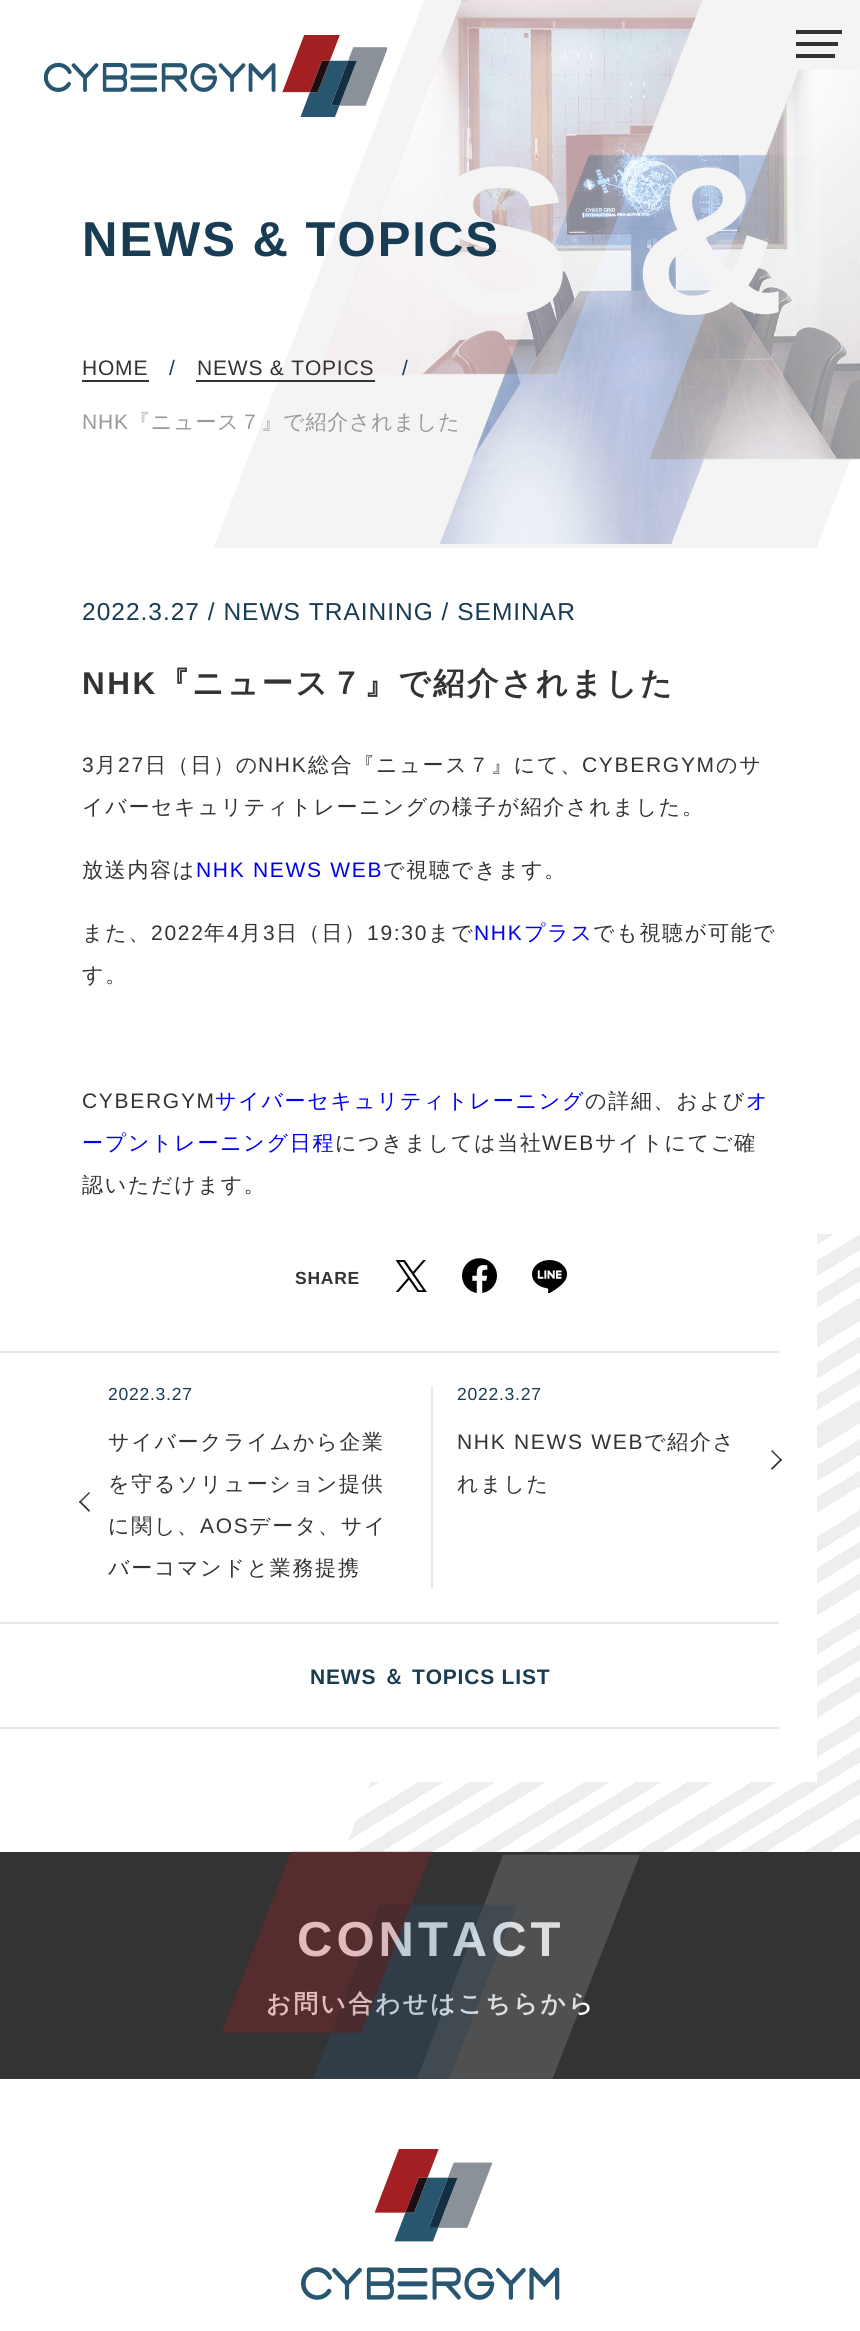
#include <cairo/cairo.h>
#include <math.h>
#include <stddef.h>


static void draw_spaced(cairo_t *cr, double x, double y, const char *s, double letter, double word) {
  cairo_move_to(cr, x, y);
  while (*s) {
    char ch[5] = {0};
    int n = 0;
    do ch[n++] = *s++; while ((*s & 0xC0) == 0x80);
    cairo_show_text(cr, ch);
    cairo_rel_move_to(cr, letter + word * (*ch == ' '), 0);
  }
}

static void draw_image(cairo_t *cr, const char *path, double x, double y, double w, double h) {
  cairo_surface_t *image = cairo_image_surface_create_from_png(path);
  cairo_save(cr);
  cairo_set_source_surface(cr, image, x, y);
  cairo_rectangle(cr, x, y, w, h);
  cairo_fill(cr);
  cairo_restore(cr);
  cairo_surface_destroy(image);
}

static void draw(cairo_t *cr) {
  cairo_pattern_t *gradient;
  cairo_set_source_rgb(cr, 1, 1, 1);
  cairo_paint(cr);
  cairo_set_source_rgb(cr, 244 / 255.0, 244 / 255.0, 244 / 255.0);
  cairo_new_path(cr);
  cairo_move_to(cr, 424, 0);
  cairo_line_to(cr, 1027, 0);
  cairo_line_to(cr, 775, 656);
  cairo_line_to(cr, 172, 656);
  cairo_close_path(cr);
  cairo_fill(cr);
  draw_image(cr, "images/2.png", 319, 0, 541, 544);
  draw_image(cr, "images/1.png", 44, 35, 343, 82);
  cairo_set_source_rgb(cr, 51 / 255.0, 51 / 255.0, 51 / 255.0);
  cairo_rectangle(cr, 796, 42, 42, 4);
  cairo_fill(cr);
  cairo_rectangle(cr, 796, 30, 46, 4);
  cairo_fill(cr);
  cairo_rectangle(cr, 796, 54, 39, 4);
  cairo_fill(cr);
  cairo_rectangle(cr, 82, 380, 67, 2);
  cairo_fill(cr);
  cairo_rectangle(cr, 196, 380, 179, 2);
  cairo_fill(cr);
  gradient = cairo_pattern_create_linear(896, 1827, 544, 1255);
  cairo_pattern_add_color_stop_rgba(gradient, 0, 1, 1, 1, 1);
  cairo_pattern_add_color_stop_rgba(gradient, 0.01, 1, 1, 1, 1);
  cairo_pattern_add_color_stop_rgba(gradient, 0.01, 238 / 255.0, 238 / 255.0, 238 / 255.0, 1);
  cairo_pattern_add_color_stop_rgba(gradient, 0.01, 1, 1, 1, 1);
  cairo_pattern_add_color_stop_rgba(gradient, 0.02, 1, 1, 1, 1);
  cairo_pattern_add_color_stop_rgba(gradient, 0.02, 238 / 255.0, 238 / 255.0, 238 / 255.0, 1);
  cairo_pattern_add_color_stop_rgba(gradient, 0.03, 238 / 255.0, 238 / 255.0, 238 / 255.0, 1);
  cairo_pattern_add_color_stop_rgba(gradient, 0.03, 1, 1, 1, 1);
  cairo_pattern_add_color_stop_rgba(gradient, 0.03, 238 / 255.0, 238 / 255.0, 238 / 255.0, 1);
  cairo_pattern_add_color_stop_rgba(gradient, 0.04, 238 / 255.0, 238 / 255.0, 238 / 255.0, 1);
  cairo_pattern_add_color_stop_rgba(gradient, 0.04, 1, 1, 1, 1);
  cairo_pattern_add_color_stop_rgba(gradient, 0.05, 1, 1, 1, 1);
  cairo_pattern_add_color_stop_rgba(gradient, 0.05, 238 / 255.0, 238 / 255.0, 238 / 255.0, 1);
  cairo_pattern_add_color_stop_rgba(gradient, 0.05, 1, 1, 1, 1);
  cairo_pattern_add_color_stop_rgba(gradient, 0.06, 1, 1, 1, 1);
  cairo_pattern_add_color_stop_rgba(gradient, 0.06, 238 / 255.0, 238 / 255.0, 238 / 255.0, 1);
  cairo_pattern_add_color_stop_rgba(gradient, 0.06, 1, 1, 1, 1);
  cairo_pattern_add_color_stop_rgba(gradient, 0.07, 1, 1, 1, 1);
  cairo_pattern_add_color_stop_rgba(gradient, 0.07, 238 / 255.0, 238 / 255.0, 238 / 255.0, 1);
  cairo_pattern_add_color_stop_rgba(gradient, 0.08, 238 / 255.0, 238 / 255.0, 238 / 255.0, 1);
  cairo_pattern_add_color_stop_rgba(gradient, 0.08, 1, 1, 1, 1);
  cairo_pattern_add_color_stop_rgba(gradient, 0.08, 238 / 255.0, 238 / 255.0, 238 / 255.0, 1);
  cairo_pattern_add_color_stop_rgba(gradient, 0.09, 238 / 255.0, 238 / 255.0, 238 / 255.0, 1);
  cairo_pattern_add_color_stop_rgba(gradient, 0.09, 1, 1, 1, 1);
  cairo_pattern_add_color_stop_rgba(gradient, 0.1, 1, 1, 1, 1);
  cairo_pattern_add_color_stop_rgba(gradient, 0.1, 238 / 255.0, 238 / 255.0, 238 / 255.0, 1);
  cairo_pattern_add_color_stop_rgba(gradient, 0.1, 1, 1, 1, 1);
  cairo_pattern_add_color_stop_rgba(gradient, 0.11, 1, 1, 1, 1);
  cairo_pattern_add_color_stop_rgba(gradient, 0.11, 238 / 255.0, 238 / 255.0, 238 / 255.0, 1);
  cairo_pattern_add_color_stop_rgba(gradient, 0.12, 238 / 255.0, 238 / 255.0, 238 / 255.0, 1);
  cairo_pattern_add_color_stop_rgba(gradient, 0.12, 1, 1, 1, 1);
  cairo_pattern_add_color_stop_rgba(gradient, 0.12, 238 / 255.0, 238 / 255.0, 238 / 255.0, 1);
  cairo_pattern_add_color_stop_rgba(gradient, 0.13, 238 / 255.0, 238 / 255.0, 238 / 255.0, 1);
  cairo_pattern_add_color_stop_rgba(gradient, 0.13, 1, 1, 1, 1);
  cairo_pattern_add_color_stop_rgba(gradient, 0.14, 1, 1, 1, 1);
  cairo_pattern_add_color_stop_rgba(gradient, 0.14, 238 / 255.0, 238 / 255.0, 238 / 255.0, 1);
  cairo_pattern_add_color_stop_rgba(gradient, 0.14, 1, 1, 1, 1);
  cairo_pattern_add_color_stop_rgba(gradient, 0.15, 1, 1, 1, 1);
  cairo_pattern_add_color_stop_rgba(gradient, 0.15, 238 / 255.0, 238 / 255.0, 238 / 255.0, 1);
  cairo_pattern_add_color_stop_rgba(gradient, 0.16, 238 / 255.0, 238 / 255.0, 238 / 255.0, 1);
  cairo_pattern_add_color_stop_rgba(gradient, 0.16, 1, 1, 1, 1);
  cairo_pattern_add_color_stop_rgba(gradient, 0.16, 238 / 255.0, 238 / 255.0, 238 / 255.0, 1);
  cairo_pattern_add_color_stop_rgba(gradient, 0.17, 238 / 255.0, 238 / 255.0, 238 / 255.0, 1);
  cairo_pattern_add_color_stop_rgba(gradient, 0.17, 1, 1, 1, 1);
  cairo_pattern_add_color_stop_rgba(gradient, 0.18, 1, 1, 1, 1);
  cairo_pattern_add_color_stop_rgba(gradient, 0.18, 238 / 255.0, 238 / 255.0, 238 / 255.0, 1);
  cairo_pattern_add_color_stop_rgba(gradient, 0.18, 1, 1, 1, 1);
  cairo_pattern_add_color_stop_rgba(gradient, 0.19, 1, 1, 1, 1);
  cairo_pattern_add_color_stop_rgba(gradient, 0.19, 238 / 255.0, 238 / 255.0, 238 / 255.0, 1);
  cairo_pattern_add_color_stop_rgba(gradient, 0.19, 1, 1, 1, 1);
  cairo_pattern_add_color_stop_rgba(gradient, 0.2, 1, 1, 1, 1);
  cairo_pattern_add_color_stop_rgba(gradient, 0.2, 238 / 255.0, 238 / 255.0, 238 / 255.0, 1);
  cairo_pattern_add_color_stop_rgba(gradient, 0.21, 238 / 255.0, 238 / 255.0, 238 / 255.0, 1);
  cairo_pattern_add_color_stop_rgba(gradient, 0.21, 1, 1, 1, 1);
  cairo_pattern_add_color_stop_rgba(gradient, 0.21, 238 / 255.0, 238 / 255.0, 238 / 255.0, 1);
  cairo_pattern_add_color_stop_rgba(gradient, 0.22, 238 / 255.0, 238 / 255.0, 238 / 255.0, 1);
  cairo_pattern_add_color_stop_rgba(gradient, 0.22, 1, 1, 1, 1);
  cairo_pattern_add_color_stop_rgba(gradient, 0.23, 1, 1, 1, 1);
  cairo_pattern_add_color_stop_rgba(gradient, 0.23, 238 / 255.0, 238 / 255.0, 238 / 255.0, 1);
  cairo_pattern_add_color_stop_rgba(gradient, 0.23, 1, 1, 1, 1);
  cairo_pattern_add_color_stop_rgba(gradient, 0.24, 1, 1, 1, 1);
  cairo_pattern_add_color_stop_rgba(gradient, 0.24, 238 / 255.0, 238 / 255.0, 238 / 255.0, 1);
  cairo_pattern_add_color_stop_rgba(gradient, 0.25, 238 / 255.0, 238 / 255.0, 238 / 255.0, 1);
  cairo_pattern_add_color_stop_rgba(gradient, 0.25, 1, 1, 1, 1);
  cairo_pattern_add_color_stop_rgba(gradient, 0.25, 238 / 255.0, 238 / 255.0, 238 / 255.0, 1);
  cairo_pattern_add_color_stop_rgba(gradient, 0.26, 238 / 255.0, 238 / 255.0, 238 / 255.0, 1);
  cairo_pattern_add_color_stop_rgba(gradient, 0.26, 1, 1, 1, 1);
  cairo_pattern_add_color_stop_rgba(gradient, 0.27, 1, 1, 1, 1);
  cairo_pattern_add_color_stop_rgba(gradient, 0.27, 238 / 255.0, 238 / 255.0, 238 / 255.0, 1);
  cairo_pattern_add_color_stop_rgba(gradient, 0.27, 1, 1, 1, 1);
  cairo_pattern_add_color_stop_rgba(gradient, 0.28, 1, 1, 1, 1);
  cairo_pattern_add_color_stop_rgba(gradient, 0.28, 238 / 255.0, 238 / 255.0, 238 / 255.0, 1);
  cairo_pattern_add_color_stop_rgba(gradient, 0.29, 238 / 255.0, 238 / 255.0, 238 / 255.0, 1);
  cairo_pattern_add_color_stop_rgba(gradient, 0.29, 1, 1, 1, 1);
  cairo_pattern_add_color_stop_rgba(gradient, 0.29, 238 / 255.0, 238 / 255.0, 238 / 255.0, 1);
  cairo_pattern_add_color_stop_rgba(gradient, 0.3, 238 / 255.0, 238 / 255.0, 238 / 255.0, 1);
  cairo_pattern_add_color_stop_rgba(gradient, 0.3, 1, 1, 1, 1);
  cairo_pattern_add_color_stop_rgba(gradient, 0.31, 1, 1, 1, 1);
  cairo_pattern_add_color_stop_rgba(gradient, 0.31, 238 / 255.0, 238 / 255.0, 238 / 255.0, 1);
  cairo_pattern_add_color_stop_rgba(gradient, 0.31, 1, 1, 1, 1);
  cairo_pattern_add_color_stop_rgba(gradient, 0.32, 1, 1, 1, 1);
  cairo_pattern_add_color_stop_rgba(gradient, 0.32, 238 / 255.0, 238 / 255.0, 238 / 255.0, 1);
  cairo_pattern_add_color_stop_rgba(gradient, 0.32, 1, 1, 1, 1);
  cairo_pattern_add_color_stop_rgba(gradient, 0.33, 1, 1, 1, 1);
  cairo_pattern_add_color_stop_rgba(gradient, 0.33, 238 / 255.0, 238 / 255.0, 238 / 255.0, 1);
  cairo_pattern_add_color_stop_rgba(gradient, 0.34, 238 / 255.0, 238 / 255.0, 238 / 255.0, 1);
  cairo_pattern_add_color_stop_rgba(gradient, 0.34, 1, 1, 1, 1);
  cairo_pattern_add_color_stop_rgba(gradient, 0.34, 238 / 255.0, 238 / 255.0, 238 / 255.0, 1);
  cairo_pattern_add_color_stop_rgba(gradient, 0.35, 238 / 255.0, 238 / 255.0, 238 / 255.0, 1);
  cairo_pattern_add_color_stop_rgba(gradient, 0.35, 1, 1, 1, 1);
  cairo_pattern_add_color_stop_rgba(gradient, 0.36, 1, 1, 1, 1);
  cairo_pattern_add_color_stop_rgba(gradient, 0.36, 238 / 255.0, 238 / 255.0, 238 / 255.0, 1);
  cairo_pattern_add_color_stop_rgba(gradient, 0.36, 1, 1, 1, 1);
  cairo_pattern_add_color_stop_rgba(gradient, 0.37, 1, 1, 1, 1);
  cairo_pattern_add_color_stop_rgba(gradient, 0.37, 238 / 255.0, 238 / 255.0, 238 / 255.0, 1);
  cairo_pattern_add_color_stop_rgba(gradient, 0.38, 238 / 255.0, 238 / 255.0, 238 / 255.0, 1);
  cairo_pattern_add_color_stop_rgba(gradient, 0.38, 1, 1, 1, 1);
  cairo_pattern_add_color_stop_rgba(gradient, 0.38, 238 / 255.0, 238 / 255.0, 238 / 255.0, 1);
  cairo_pattern_add_color_stop_rgba(gradient, 0.39, 238 / 255.0, 238 / 255.0, 238 / 255.0, 1);
  cairo_pattern_add_color_stop_rgba(gradient, 0.39, 1, 1, 1, 1);
  cairo_pattern_add_color_stop_rgba(gradient, 0.4, 1, 1, 1, 1);
  cairo_pattern_add_color_stop_rgba(gradient, 0.4, 238 / 255.0, 238 / 255.0, 238 / 255.0, 1);
  cairo_pattern_add_color_stop_rgba(gradient, 0.4, 1, 1, 1, 1);
  cairo_pattern_add_color_stop_rgba(gradient, 0.41, 1, 1, 1, 1);
  cairo_pattern_add_color_stop_rgba(gradient, 0.41, 238 / 255.0, 238 / 255.0, 238 / 255.0, 1);
  cairo_pattern_add_color_stop_rgba(gradient, 0.42, 238 / 255.0, 238 / 255.0, 238 / 255.0, 1);
  cairo_pattern_add_color_stop_rgba(gradient, 0.42, 1, 1, 1, 1);
  cairo_pattern_add_color_stop_rgba(gradient, 0.42, 238 / 255.0, 238 / 255.0, 238 / 255.0, 1);
  cairo_pattern_add_color_stop_rgba(gradient, 0.43, 238 / 255.0, 238 / 255.0, 238 / 255.0, 1);
  cairo_pattern_add_color_stop_rgba(gradient, 0.43, 1, 1, 1, 1);
  cairo_pattern_add_color_stop_rgba(gradient, 0.44, 1, 1, 1, 1);
  cairo_pattern_add_color_stop_rgba(gradient, 0.44, 238 / 255.0, 238 / 255.0, 238 / 255.0, 1);
  cairo_pattern_add_color_stop_rgba(gradient, 0.44, 1, 1, 1, 1);
  cairo_pattern_add_color_stop_rgba(gradient, 0.45, 1, 1, 1, 1);
  cairo_pattern_add_color_stop_rgba(gradient, 0.45, 238 / 255.0, 238 / 255.0, 238 / 255.0, 1);
  cairo_pattern_add_color_stop_rgba(gradient, 0.45, 1, 1, 1, 1);
  cairo_pattern_add_color_stop_rgba(gradient, 0.46, 1, 1, 1, 1);
  cairo_pattern_add_color_stop_rgba(gradient, 0.46, 238 / 255.0, 238 / 255.0, 238 / 255.0, 1);
  cairo_pattern_add_color_stop_rgba(gradient, 0.47, 238 / 255.0, 238 / 255.0, 238 / 255.0, 1);
  cairo_pattern_add_color_stop_rgba(gradient, 0.47, 1, 1, 1, 1);
  cairo_pattern_add_color_stop_rgba(gradient, 0.47, 238 / 255.0, 238 / 255.0, 238 / 255.0, 1);
  cairo_pattern_add_color_stop_rgba(gradient, 0.48, 238 / 255.0, 238 / 255.0, 238 / 255.0, 1);
  cairo_pattern_add_color_stop_rgba(gradient, 0.48, 1, 1, 1, 1);
  cairo_pattern_add_color_stop_rgba(gradient, 0.49, 1, 1, 1, 1);
  cairo_pattern_add_color_stop_rgba(gradient, 0.49, 238 / 255.0, 238 / 255.0, 238 / 255.0, 1);
  cairo_pattern_add_color_stop_rgba(gradient, 0.49, 1, 1, 1, 1);
  cairo_pattern_add_color_stop_rgba(gradient, 0.5, 1, 1, 1, 1);
  cairo_pattern_add_color_stop_rgba(gradient, 0.5, 238 / 255.0, 238 / 255.0, 238 / 255.0, 1);
  cairo_pattern_add_color_stop_rgba(gradient, 0.51, 238 / 255.0, 238 / 255.0, 238 / 255.0, 1);
  cairo_pattern_add_color_stop_rgba(gradient, 0.51, 1, 1, 1, 1);
  cairo_pattern_add_color_stop_rgba(gradient, 0.51, 238 / 255.0, 238 / 255.0, 238 / 255.0, 1);
  cairo_pattern_add_color_stop_rgba(gradient, 0.52, 238 / 255.0, 238 / 255.0, 238 / 255.0, 1);
  cairo_pattern_add_color_stop_rgba(gradient, 0.52, 1, 1, 1, 1);
  cairo_pattern_add_color_stop_rgba(gradient, 0.53, 1, 1, 1, 1);
  cairo_pattern_add_color_stop_rgba(gradient, 0.53, 238 / 255.0, 238 / 255.0, 238 / 255.0, 1);
  cairo_pattern_add_color_stop_rgba(gradient, 0.53, 1, 1, 1, 1);
  cairo_pattern_add_color_stop_rgba(gradient, 0.54, 1, 1, 1, 1);
  cairo_pattern_add_color_stop_rgba(gradient, 0.54, 238 / 255.0, 238 / 255.0, 238 / 255.0, 1);
  cairo_pattern_add_color_stop_rgba(gradient, 0.55, 238 / 255.0, 238 / 255.0, 238 / 255.0, 1);
  cairo_pattern_add_color_stop_rgba(gradient, 0.55, 1, 1, 1, 1);
  cairo_pattern_add_color_stop_rgba(gradient, 0.55, 238 / 255.0, 238 / 255.0, 238 / 255.0, 1);
  cairo_pattern_add_color_stop_rgba(gradient, 0.56, 238 / 255.0, 238 / 255.0, 238 / 255.0, 1);
  cairo_pattern_add_color_stop_rgba(gradient, 0.56, 1, 1, 1, 1);
  cairo_pattern_add_color_stop_rgba(gradient, 0.56, 238 / 255.0, 238 / 255.0, 238 / 255.0, 1);
  cairo_pattern_add_color_stop_rgba(gradient, 0.57, 238 / 255.0, 238 / 255.0, 238 / 255.0, 1);
  cairo_pattern_add_color_stop_rgba(gradient, 0.57, 1, 1, 1, 1);
  cairo_pattern_add_color_stop_rgba(gradient, 0.58, 1, 1, 1, 1);
  cairo_pattern_add_color_stop_rgba(gradient, 0.58, 238 / 255.0, 238 / 255.0, 238 / 255.0, 1);
  cairo_pattern_add_color_stop_rgba(gradient, 0.58, 1, 1, 1, 1);
  cairo_pattern_add_color_stop_rgba(gradient, 0.59, 1, 1, 1, 1);
  cairo_pattern_add_color_stop_rgba(gradient, 0.59, 238 / 255.0, 238 / 255.0, 238 / 255.0, 1);
  cairo_pattern_add_color_stop_rgba(gradient, 0.6, 238 / 255.0, 238 / 255.0, 238 / 255.0, 1);
  cairo_pattern_add_color_stop_rgba(gradient, 0.6, 1, 1, 1, 1);
  cairo_pattern_add_color_stop_rgba(gradient, 0.6, 238 / 255.0, 238 / 255.0, 238 / 255.0, 1);
  cairo_pattern_add_color_stop_rgba(gradient, 0.61, 238 / 255.0, 238 / 255.0, 238 / 255.0, 1);
  cairo_pattern_add_color_stop_rgba(gradient, 0.61, 1, 1, 1, 1);
  cairo_pattern_add_color_stop_rgba(gradient, 0.62, 1, 1, 1, 1);
  cairo_pattern_add_color_stop_rgba(gradient, 0.62, 238 / 255.0, 238 / 255.0, 238 / 255.0, 1);
  cairo_pattern_add_color_stop_rgba(gradient, 0.62, 1, 1, 1, 1);
  cairo_pattern_add_color_stop_rgba(gradient, 0.63, 1, 1, 1, 1);
  cairo_pattern_add_color_stop_rgba(gradient, 0.63, 238 / 255.0, 238 / 255.0, 238 / 255.0, 1);
  cairo_pattern_add_color_stop_rgba(gradient, 0.64, 238 / 255.0, 238 / 255.0, 238 / 255.0, 1);
  cairo_pattern_add_color_stop_rgba(gradient, 0.64, 1, 1, 1, 1);
  cairo_pattern_add_color_stop_rgba(gradient, 0.64, 238 / 255.0, 238 / 255.0, 238 / 255.0, 1);
  cairo_pattern_add_color_stop_rgba(gradient, 0.65, 238 / 255.0, 238 / 255.0, 238 / 255.0, 1);
  cairo_pattern_add_color_stop_rgba(gradient, 0.65, 1, 1, 1, 1);
  cairo_pattern_add_color_stop_rgba(gradient, 0.66, 1, 1, 1, 1);
  cairo_pattern_add_color_stop_rgba(gradient, 0.66, 238 / 255.0, 238 / 255.0, 238 / 255.0, 1);
  cairo_pattern_add_color_stop_rgba(gradient, 0.66, 1, 1, 1, 1);
  cairo_pattern_add_color_stop_rgba(gradient, 0.67, 1, 1, 1, 1);
  cairo_pattern_add_color_stop_rgba(gradient, 0.67, 238 / 255.0, 238 / 255.0, 238 / 255.0, 1);
  cairo_pattern_add_color_stop_rgba(gradient, 0.68, 238 / 255.0, 238 / 255.0, 238 / 255.0, 1);
  cairo_pattern_add_color_stop_rgba(gradient, 0.68, 1, 1, 1, 1);
  cairo_pattern_add_color_stop_rgba(gradient, 0.68, 238 / 255.0, 238 / 255.0, 238 / 255.0, 1);
  cairo_pattern_add_color_stop_rgba(gradient, 0.69, 238 / 255.0, 238 / 255.0, 238 / 255.0, 1);
  cairo_pattern_add_color_stop_rgba(gradient, 0.69, 1, 1, 1, 1);
  cairo_pattern_add_color_stop_rgba(gradient, 0.69, 238 / 255.0, 238 / 255.0, 238 / 255.0, 1);
  cairo_pattern_add_color_stop_rgba(gradient, 0.7, 238 / 255.0, 238 / 255.0, 238 / 255.0, 1);
  cairo_pattern_add_color_stop_rgba(gradient, 0.7, 1, 1, 1, 1);
  cairo_pattern_add_color_stop_rgba(gradient, 0.71, 1, 1, 1, 1);
  cairo_pattern_add_color_stop_rgba(gradient, 0.71, 238 / 255.0, 238 / 255.0, 238 / 255.0, 1);
  cairo_pattern_add_color_stop_rgba(gradient, 0.71, 1, 1, 1, 1);
  cairo_pattern_add_color_stop_rgba(gradient, 0.72, 1, 1, 1, 1);
  cairo_pattern_add_color_stop_rgba(gradient, 0.72, 238 / 255.0, 238 / 255.0, 238 / 255.0, 1);
  cairo_pattern_add_color_stop_rgba(gradient, 0.73, 238 / 255.0, 238 / 255.0, 238 / 255.0, 1);
  cairo_pattern_add_color_stop_rgba(gradient, 0.73, 1, 1, 1, 1);
  cairo_pattern_add_color_stop_rgba(gradient, 0.73, 238 / 255.0, 238 / 255.0, 238 / 255.0, 1);
  cairo_pattern_add_color_stop_rgba(gradient, 0.74, 238 / 255.0, 238 / 255.0, 238 / 255.0, 1);
  cairo_pattern_add_color_stop_rgba(gradient, 0.74, 1, 1, 1, 1);
  cairo_pattern_add_color_stop_rgba(gradient, 0.75, 1, 1, 1, 1);
  cairo_pattern_add_color_stop_rgba(gradient, 0.75, 238 / 255.0, 238 / 255.0, 238 / 255.0, 1);
  cairo_pattern_add_color_stop_rgba(gradient, 0.75, 1, 1, 1, 1);
  cairo_pattern_add_color_stop_rgba(gradient, 0.76, 1, 1, 1, 1);
  cairo_pattern_add_color_stop_rgba(gradient, 0.76, 238 / 255.0, 238 / 255.0, 238 / 255.0, 1);
  cairo_pattern_add_color_stop_rgba(gradient, 0.77, 238 / 255.0, 238 / 255.0, 238 / 255.0, 1);
  cairo_pattern_add_color_stop_rgba(gradient, 0.77, 1, 1, 1, 1);
  cairo_pattern_add_color_stop_rgba(gradient, 0.77, 238 / 255.0, 238 / 255.0, 238 / 255.0, 1);
  cairo_pattern_add_color_stop_rgba(gradient, 0.78, 238 / 255.0, 238 / 255.0, 238 / 255.0, 1);
  cairo_pattern_add_color_stop_rgba(gradient, 0.78, 1, 1, 1, 1);
  cairo_pattern_add_color_stop_rgba(gradient, 0.79, 1, 1, 1, 1);
  cairo_pattern_add_color_stop_rgba(gradient, 0.79, 238 / 255.0, 238 / 255.0, 238 / 255.0, 1);
  cairo_pattern_add_color_stop_rgba(gradient, 0.79, 1, 1, 1, 1);
  cairo_pattern_add_color_stop_rgba(gradient, 0.8, 1, 1, 1, 1);
  cairo_pattern_add_color_stop_rgba(gradient, 0.8, 238 / 255.0, 238 / 255.0, 238 / 255.0, 1);
  cairo_pattern_add_color_stop_rgba(gradient, 0.81, 238 / 255.0, 238 / 255.0, 238 / 255.0, 1);
  cairo_pattern_add_color_stop_rgba(gradient, 0.81, 1, 1, 1, 1);
  cairo_pattern_add_color_stop_rgba(gradient, 0.81, 238 / 255.0, 238 / 255.0, 238 / 255.0, 1);
  cairo_pattern_add_color_stop_rgba(gradient, 0.82, 238 / 255.0, 238 / 255.0, 238 / 255.0, 1);
  cairo_pattern_add_color_stop_rgba(gradient, 0.82, 1, 1, 1, 1);
  cairo_pattern_add_color_stop_rgba(gradient, 0.82, 238 / 255.0, 238 / 255.0, 238 / 255.0, 1);
  cairo_pattern_add_color_stop_rgba(gradient, 0.83, 238 / 255.0, 238 / 255.0, 238 / 255.0, 1);
  cairo_pattern_add_color_stop_rgba(gradient, 0.83, 1, 1, 1, 1);
  cairo_pattern_add_color_stop_rgba(gradient, 0.84, 1, 1, 1, 1);
  cairo_pattern_add_color_stop_rgba(gradient, 0.84, 238 / 255.0, 238 / 255.0, 238 / 255.0, 1);
  cairo_pattern_add_color_stop_rgba(gradient, 0.84, 1, 1, 1, 1);
  cairo_pattern_add_color_stop_rgba(gradient, 0.85, 1, 1, 1, 1);
  cairo_pattern_add_color_stop_rgba(gradient, 0.85, 238 / 255.0, 238 / 255.0, 238 / 255.0, 1);
  cairo_pattern_add_color_stop_rgba(gradient, 0.86, 238 / 255.0, 238 / 255.0, 238 / 255.0, 1);
  cairo_pattern_add_color_stop_rgba(gradient, 0.86, 1, 1, 1, 1);
  cairo_pattern_add_color_stop_rgba(gradient, 0.86, 238 / 255.0, 238 / 255.0, 238 / 255.0, 1);
  cairo_pattern_add_color_stop_rgba(gradient, 0.87, 238 / 255.0, 238 / 255.0, 238 / 255.0, 1);
  cairo_pattern_add_color_stop_rgba(gradient, 0.87, 1, 1, 1, 1);
  cairo_pattern_add_color_stop_rgba(gradient, 0.88, 1, 1, 1, 1);
  cairo_pattern_add_color_stop_rgba(gradient, 0.88, 238 / 255.0, 238 / 255.0, 238 / 255.0, 1);
  cairo_pattern_add_color_stop_rgba(gradient, 0.88, 1, 1, 1, 1);
  cairo_pattern_add_color_stop_rgba(gradient, 0.89, 1, 1, 1, 1);
  cairo_pattern_add_color_stop_rgba(gradient, 0.89, 238 / 255.0, 238 / 255.0, 238 / 255.0, 1);
  cairo_pattern_add_color_stop_rgba(gradient, 0.9, 238 / 255.0, 238 / 255.0, 238 / 255.0, 1);
  cairo_pattern_add_color_stop_rgba(gradient, 0.9, 1, 1, 1, 1);
  cairo_pattern_add_color_stop_rgba(gradient, 0.9, 238 / 255.0, 238 / 255.0, 238 / 255.0, 1);
  cairo_pattern_add_color_stop_rgba(gradient, 0.91, 238 / 255.0, 238 / 255.0, 238 / 255.0, 1);
  cairo_pattern_add_color_stop_rgba(gradient, 0.91, 1, 1, 1, 1);
  cairo_pattern_add_color_stop_rgba(gradient, 0.92, 1, 1, 1, 1);
  cairo_pattern_add_color_stop_rgba(gradient, 0.92, 238 / 255.0, 238 / 255.0, 238 / 255.0, 1);
  cairo_pattern_add_color_stop_rgba(gradient, 0.92, 1, 1, 1, 1);
  cairo_pattern_add_color_stop_rgba(gradient, 0.93, 1, 1, 1, 1);
  cairo_pattern_add_color_stop_rgba(gradient, 0.93, 238 / 255.0, 238 / 255.0, 238 / 255.0, 1);
  cairo_pattern_add_color_stop_rgba(gradient, 0.94, 238 / 255.0, 238 / 255.0, 238 / 255.0, 1);
  cairo_pattern_add_color_stop_rgba(gradient, 0.94, 1, 1, 1, 1);
  cairo_pattern_add_color_stop_rgba(gradient, 0.94, 238 / 255.0, 238 / 255.0, 238 / 255.0, 1);
  cairo_pattern_add_color_stop_rgba(gradient, 0.95, 238 / 255.0, 238 / 255.0, 238 / 255.0, 1);
  cairo_pattern_add_color_stop_rgba(gradient, 0.95, 1, 1, 1, 1);
  cairo_pattern_add_color_stop_rgba(gradient, 0.95, 238 / 255.0, 238 / 255.0, 238 / 255.0, 1);
  cairo_pattern_add_color_stop_rgba(gradient, 0.96, 238 / 255.0, 238 / 255.0, 238 / 255.0, 1);
  cairo_pattern_add_color_stop_rgba(gradient, 0.96, 1, 1, 1, 1);
  cairo_pattern_add_color_stop_rgba(gradient, 0.97, 1, 1, 1, 1);
  cairo_pattern_add_color_stop_rgba(gradient, 0.97, 238 / 255.0, 238 / 255.0, 238 / 255.0, 1);
  cairo_pattern_add_color_stop_rgba(gradient, 0.97, 1, 1, 1, 1);
  cairo_pattern_add_color_stop_rgba(gradient, 0.98, 1, 1, 1, 1);
  cairo_pattern_add_color_stop_rgba(gradient, 0.98, 238 / 255.0, 238 / 255.0, 238 / 255.0, 1);
  cairo_pattern_add_color_stop_rgba(gradient, 0.99, 238 / 255.0, 238 / 255.0, 238 / 255.0, 1);
  cairo_pattern_add_color_stop_rgba(gradient, 0.99, 1, 1, 1, 1);
  cairo_pattern_add_color_stop_rgba(gradient, 0.99, 238 / 255.0, 238 / 255.0, 238 / 255.0, 1);
  cairo_pattern_add_color_stop_rgba(gradient, 1, 238 / 255.0, 238 / 255.0, 238 / 255.0, 1);
  cairo_set_source(cr, gradient);
  cairo_pattern_destroy(gradient);
  cairo_new_path(cr);
  cairo_move_to(cr, 581, 1234);
  cairo_line_to(cr, 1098, 1234);
  cairo_line_to(cr, 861, 1852);
  cairo_line_to(cr, 344, 1852);
  cairo_close_path(cr);
  cairo_fill(cr);
  cairo_set_source_rgb(cr, 1, 1, 1);
  cairo_rectangle(cr, 172, 548, 645, 1234);
  cairo_fill(cr);
  draw_image(cr, "images/3.png", 396, 1260, 31, 32);
  draw_image(cr, "images/4.png", 462, 1258, 35, 35);
  draw_image(cr, "images/5.png", 532, 1260, 35, 33);
  cairo_set_source_rgb(cr, 232 / 255.0, 232 / 255.0, 232 / 255.0);
  cairo_rectangle(cr, 0, 1351, 779, 2);
  cairo_fill(cr);
  cairo_set_source_rgb(cr, 51 / 255.0, 51 / 255.0, 51 / 255.0);
  cairo_new_path(cr);
  cairo_move_to(cr, 90, 1510.5);
  cairo_line_to(cr, 89, 1512);
  cairo_line_to(cr, 79, 1502);
  cairo_line_to(cr, 80, 1500.5);
  cairo_close_path(cr);
  cairo_fill(cr);
  cairo_new_path(cr);
  cairo_move_to(cr, 90, 1493);
  cairo_line_to(cr, 80, 1503);
  cairo_line_to(cr, 79, 1502);
  cairo_line_to(cr, 89, 1492);
  cairo_close_path(cr);
  cairo_fill(cr);
  cairo_set_source_rgb(cr, 232 / 255.0, 232 / 255.0, 232 / 255.0);
  cairo_rectangle(cr, 431, 1386, 2, 203);
  cairo_fill(cr);
  cairo_set_source_rgb(cr, 51 / 255.0, 51 / 255.0, 51 / 255.0);
  cairo_new_path(cr);
  cairo_move_to(cr, 771, 1451);
  cairo_line_to(cr, 772, 1450);
  cairo_line_to(cr, 782, 1460);
  cairo_line_to(cr, 781, 1461);
  cairo_close_path(cr);
  cairo_fill(cr);
  cairo_new_path(cr);
  cairo_move_to(cr, 771, 1468.5);
  cairo_line_to(cr, 781, 1458.5);
  cairo_line_to(cr, 782, 1460);
  cairo_line_to(cr, 772, 1470);
  cairo_close_path(cr);
  cairo_fill(cr);
  cairo_set_source_rgb(cr, 232 / 255.0, 232 / 255.0, 232 / 255.0);
  cairo_rectangle(cr, 0, 1622, 779, 2);
  cairo_fill(cr);
  cairo_rectangle(cr, 0, 1727, 779, 2);
  cairo_fill(cr);
  cairo_set_source_rgb(cr, 51 / 255.0, 51 / 255.0, 51 / 255.0);
  cairo_rectangle(cr, 0, 1852, 860, 227);
  cairo_fill(cr);
  draw_image(cr, "images/7.png", 301, 2149, 259, 151);
  cairo_select_font_face(cr, "Liberation Sans", CAIRO_FONT_SLANT_NORMAL, CAIRO_FONT_WEIGHT_BOLD);
  cairo_set_font_size(cr, 210);
  cairo_set_source_rgb(cr, 244 / 255.0, 244 / 255.0, 244 / 255.0);
  draw_spaced(cr, 431, 313, "S &", 2, 0);
  cairo_set_font_size(cr, 49);
  cairo_set_source_rgb(cr, 24 / 255.0, 60 / 255.0, 83 / 255.0);
  draw_spaced(cr, 82, 256, "NEWS & TOPICS", 2, 0);
  cairo_select_font_face(cr, "Liberation Sans", CAIRO_FONT_SLANT_NORMAL, CAIRO_FONT_WEIGHT_NORMAL);
  cairo_set_font_size(cr, 21);
  cairo_set_source_rgb(cr, 51 / 255.0, 51 / 255.0, 51 / 255.0);
  draw_spaced(cr, 82, 375, "HOME", 0.8, 0);
  cairo_set_source_rgb(cr, 24 / 255.0, 60 / 255.0, 83 / 255.0);
  draw_spaced(cr, 169, 375, "/", 0.8, 0);
  cairo_set_source_rgb(cr, 51 / 255.0, 51 / 255.0, 51 / 255.0);
  draw_spaced(cr, 197, 375, "NEWS & TOPICS", 0.8, 0);
  cairo_set_source_rgb(cr, 24 / 255.0, 60 / 255.0, 83 / 255.0);
  draw_spaced(cr, 402, 375, "/", 0.8, 0);
  cairo_set_source_rgb(cr, 153 / 255.0, 153 / 255.0, 153 / 255.0);
  draw_spaced(cr, 82, 429, "NHK", 0.8, 0);
  cairo_select_font_face(cr, "WenQuanYi Zen Hei Medium", CAIRO_FONT_SLANT_NORMAL, CAIRO_FONT_WEIGHT_NORMAL);
  draw_spaced(cr, 129, 429, "『ニュース７』で紹介されました", 0.8, 0);
  cairo_select_font_face(cr, "Liberation Sans", CAIRO_FONT_SLANT_NORMAL, CAIRO_FONT_WEIGHT_NORMAL);
  cairo_set_font_size(cr, 24.5);
  cairo_set_source_rgb(cr, 24 / 255.0, 60 / 255.0, 83 / 255.0);
  draw_spaced(cr, 82, 620, "2022.3.27 / NEWS TRAINING / SEMINAR", 1, 0);
  cairo_select_font_face(cr, "Liberation Sans", CAIRO_FONT_SLANT_NORMAL, CAIRO_FONT_WEIGHT_BOLD);
  cairo_set_font_size(cr, 31.5);
  cairo_set_source_rgb(cr, 51 / 255.0, 51 / 255.0, 51 / 255.0);
  draw_spaced(cr, 82, 694, "NHK", 2.5, 0);
  cairo_select_font_face(cr, "WenQuanYi Zen Hei", CAIRO_FONT_SLANT_NORMAL, CAIRO_FONT_WEIGHT_BOLD);
  draw_spaced(cr, 158, 694, "『ニュース７』で紹介されました", 2.5, 0);
  cairo_select_font_face(cr, "Liberation Sans", CAIRO_FONT_SLANT_NORMAL, CAIRO_FONT_WEIGHT_NORMAL);
  cairo_set_font_size(cr, 21);
  draw_spaced(cr, 82, 772, "3", 1.7, 0);
  cairo_select_font_face(cr, "WenQuanYi Zen Hei Medium", CAIRO_FONT_SLANT_NORMAL, CAIRO_FONT_WEIGHT_NORMAL);
  draw_spaced(cr, 95, 772, "月", 1.7, 0);
  cairo_select_font_face(cr, "Liberation Sans", CAIRO_FONT_SLANT_NORMAL, CAIRO_FONT_WEIGHT_NORMAL);
  draw_spaced(cr, 118, 772, "27", 1.7, 0);
  cairo_select_font_face(cr, "WenQuanYi Zen Hei Medium", CAIRO_FONT_SLANT_NORMAL, CAIRO_FONT_WEIGHT_NORMAL);
  draw_spaced(cr, 145, 772, "日（日）の", 1.7, 0);
  cairo_select_font_face(cr, "Liberation Sans", CAIRO_FONT_SLANT_NORMAL, CAIRO_FONT_WEIGHT_NORMAL);
  draw_spaced(cr, 258, 772, "NHK", 1.7, 0);
  cairo_select_font_face(cr, "WenQuanYi Zen Hei Medium", CAIRO_FONT_SLANT_NORMAL, CAIRO_FONT_WEIGHT_NORMAL);
  draw_spaced(cr, 308, 772, "総合『ニュース７』にて、", 1.7, 0);
  cairo_select_font_face(cr, "Liberation Sans", CAIRO_FONT_SLANT_NORMAL, CAIRO_FONT_WEIGHT_NORMAL);
  draw_spaced(cr, 582, 772, "CYBERGYM", 1.7, 0);
  cairo_select_font_face(cr, "WenQuanYi Zen Hei Medium", CAIRO_FONT_SLANT_NORMAL, CAIRO_FONT_WEIGHT_NORMAL);
  draw_spaced(cr, 716, 772, "のサ", 1.7, 0);
  draw_spaced(cr, 82, 814, "イバーセキュリティトレーニングの様子が紹介されました。", 1.7, 0);
  draw_spaced(cr, 82, 877, "放送内容は", 1.7, 0);
  cairo_select_font_face(cr, "Liberation Sans", CAIRO_FONT_SLANT_NORMAL, CAIRO_FONT_WEIGHT_NORMAL);
  cairo_set_source_rgb(cr, 0, 0, 238 / 255.0);
  draw_spaced(cr, 196, 877, "NHK NEWS WEB", 1.7, 0);
  cairo_select_font_face(cr, "WenQuanYi Zen Hei Medium", CAIRO_FONT_SLANT_NORMAL, CAIRO_FONT_WEIGHT_NORMAL);
  cairo_set_source_rgb(cr, 51 / 255.0, 51 / 255.0, 51 / 255.0);
  draw_spaced(cr, 383, 877, "で視聴できます。", 1.7, 0);
  draw_spaced(cr, 82, 940, "また、", 1.7, 0);
  cairo_select_font_face(cr, "Liberation Sans", CAIRO_FONT_SLANT_NORMAL, CAIRO_FONT_WEIGHT_NORMAL);
  draw_spaced(cr, 151, 940, "2022", 1.7, 0);
  cairo_select_font_face(cr, "WenQuanYi Zen Hei Medium", CAIRO_FONT_SLANT_NORMAL, CAIRO_FONT_WEIGHT_NORMAL);
  draw_spaced(cr, 204, 940, "年", 1.7, 0);
  cairo_select_font_face(cr, "Liberation Sans", CAIRO_FONT_SLANT_NORMAL, CAIRO_FONT_WEIGHT_NORMAL);
  draw_spaced(cr, 227, 940, "4", 1.7, 0);
  cairo_select_font_face(cr, "WenQuanYi Zen Hei Medium", CAIRO_FONT_SLANT_NORMAL, CAIRO_FONT_WEIGHT_NORMAL);
  draw_spaced(cr, 240, 940, "月", 1.7, 0);
  cairo_select_font_face(cr, "Liberation Sans", CAIRO_FONT_SLANT_NORMAL, CAIRO_FONT_WEIGHT_NORMAL);
  draw_spaced(cr, 263, 940, "3", 1.7, 0);
  cairo_select_font_face(cr, "WenQuanYi Zen Hei Medium", CAIRO_FONT_SLANT_NORMAL, CAIRO_FONT_WEIGHT_NORMAL);
  draw_spaced(cr, 276, 940, "日（日）", 1.7, 0);
  cairo_select_font_face(cr, "Liberation Sans", CAIRO_FONT_SLANT_NORMAL, CAIRO_FONT_WEIGHT_NORMAL);
  draw_spaced(cr, 367, 940, "19:30", 1.7, 0);
  cairo_select_font_face(cr, "WenQuanYi Zen Hei Medium", CAIRO_FONT_SLANT_NORMAL, CAIRO_FONT_WEIGHT_NORMAL);
  draw_spaced(cr, 428, 940, "まで", 1.7, 0);
  cairo_select_font_face(cr, "Liberation Sans", CAIRO_FONT_SLANT_NORMAL, CAIRO_FONT_WEIGHT_NORMAL);
  cairo_set_source_rgb(cr, 0, 0, 238 / 255.0);
  draw_spaced(cr, 474, 940, "NHK", 1.7, 0);
  cairo_select_font_face(cr, "WenQuanYi Zen Hei Medium", CAIRO_FONT_SLANT_NORMAL, CAIRO_FONT_WEIGHT_NORMAL);
  draw_spaced(cr, 524, 940, "プラス", 1.7, 0);
  cairo_set_source_rgb(cr, 51 / 255.0, 51 / 255.0, 51 / 255.0);
  draw_spaced(cr, 593, 940, "でも視聴が可能で", 1.7, 0);
  draw_spaced(cr, 82, 982, "す。", 1.7, 0);
  cairo_select_font_face(cr, "Liberation Sans", CAIRO_FONT_SLANT_NORMAL, CAIRO_FONT_WEIGHT_NORMAL);
  draw_spaced(cr, 82, 1108, "CYBERGYM", 1.7, 0);
  cairo_select_font_face(cr, "WenQuanYi Zen Hei Medium", CAIRO_FONT_SLANT_NORMAL, CAIRO_FONT_WEIGHT_NORMAL);
  cairo_set_source_rgb(cr, 0, 0, 238 / 255.0);
  draw_spaced(cr, 215, 1108, "サイバーセキュリティトレーニング", 1.7, 0);
  cairo_set_source_rgb(cr, 51 / 255.0, 51 / 255.0, 51 / 255.0);
  draw_spaced(cr, 585, 1108, "の詳細、および", 1.7, 0);
  cairo_set_source_rgb(cr, 0, 0, 238 / 255.0);
  draw_spaced(cr, 746, 1108, "オ", 1.7, 0);
  draw_spaced(cr, 82, 1150, "ープントレーニング日程", 1.7, 0);
  cairo_set_source_rgb(cr, 51 / 255.0, 51 / 255.0, 51 / 255.0);
  draw_spaced(cr, 335, 1150, "につきましては当社", 1.7, 0);
  cairo_select_font_face(cr, "Liberation Sans", CAIRO_FONT_SLANT_NORMAL, CAIRO_FONT_WEIGHT_NORMAL);
  draw_spaced(cr, 542, 1150, "WEB", 1.7, 0);
  cairo_select_font_face(cr, "WenQuanYi Zen Hei Medium", CAIRO_FONT_SLANT_NORMAL, CAIRO_FONT_WEIGHT_NORMAL);
  draw_spaced(cr, 595, 1150, "サイトにてご確", 1.7, 0);
  draw_spaced(cr, 82, 1192, "認いただけます。", 1.7, 0);
  cairo_select_font_face(cr, "Liberation Sans", CAIRO_FONT_SLANT_NORMAL, CAIRO_FONT_WEIGHT_BOLD);
  cairo_set_font_size(cr, 17.5);
  draw_spaced(cr, 295, 1284, "SHARE", 0.75, 0);
  cairo_select_font_face(cr, "Liberation Sans", CAIRO_FONT_SLANT_NORMAL, CAIRO_FONT_WEIGHT_NORMAL);
  cairo_set_source_rgb(cr, 24 / 255.0, 60 / 255.0, 83 / 255.0);
  draw_spaced(cr, 108, 1400, "2022.3.27", 0.75, 0);
  cairo_select_font_face(cr, "WenQuanYi Zen Hei Medium", CAIRO_FONT_SLANT_NORMAL, CAIRO_FONT_WEIGHT_NORMAL);
  cairo_set_font_size(cr, 21);
  cairo_set_source_rgb(cr, 51 / 255.0, 51 / 255.0, 51 / 255.0);
  draw_spaced(cr, 108, 1449, "サイバークライムから企業", 1.7, 0);
  draw_spaced(cr, 108, 1491, "を守るソリューション提供", 1.7, 0);
  draw_spaced(cr, 108, 1533, "に関し、", 1.7, 0);
  cairo_select_font_face(cr, "Liberation Sans", CAIRO_FONT_SLANT_NORMAL, CAIRO_FONT_WEIGHT_NORMAL);
  draw_spaced(cr, 200, 1533, "AOS", 1.7, 0);
  cairo_select_font_face(cr, "WenQuanYi Zen Hei Medium", CAIRO_FONT_SLANT_NORMAL, CAIRO_FONT_WEIGHT_NORMAL);
  draw_spaced(cr, 249, 1533, "データ、サイ", 1.7, 0);
  draw_spaced(cr, 108, 1575, "バーコマンドと業務提携", 1.7, 0);
  cairo_select_font_face(cr, "Liberation Sans", CAIRO_FONT_SLANT_NORMAL, CAIRO_FONT_WEIGHT_NORMAL);
  cairo_set_font_size(cr, 17.5);
  cairo_set_source_rgb(cr, 24 / 255.0, 60 / 255.0, 83 / 255.0);
  draw_spaced(cr, 457, 1400, "2022.3.27", 0.75, 0);
  cairo_set_font_size(cr, 21);
  cairo_set_source_rgb(cr, 51 / 255.0, 51 / 255.0, 51 / 255.0);
  draw_spaced(cr, 457, 1449, "NHK NEWS WEB", 1.7, 0);
  cairo_select_font_face(cr, "WenQuanYi Zen Hei Medium", CAIRO_FONT_SLANT_NORMAL, CAIRO_FONT_WEIGHT_NORMAL);
  draw_spaced(cr, 644, 1449, "で紹介さ", 1.7, 0);
  draw_spaced(cr, 457, 1491, "れました", 1.7, 0);
  cairo_select_font_face(cr, "Liberation Sans", CAIRO_FONT_SLANT_NORMAL, CAIRO_FONT_WEIGHT_BOLD);
  cairo_set_source_rgb(cr, 24 / 255.0, 60 / 255.0, 83 / 255.0);
  draw_spaced(cr, 310, 1684, "NEWS", 0.8, 0);
  cairo_select_font_face(cr, "WenQuanYi Zen Hei", CAIRO_FONT_SLANT_NORMAL, CAIRO_FONT_WEIGHT_BOLD);
  draw_spaced(cr, 383, 1684, "＆", 0.8, 0);
  cairo_select_font_face(cr, "Liberation Sans", CAIRO_FONT_SLANT_NORMAL, CAIRO_FONT_WEIGHT_BOLD);
  draw_spaced(cr, 412, 1684, "TOPICS LIST", 0.8, 0);
  cairo_set_font_size(cr, 49);
  cairo_set_source_rgb(cr, 1, 1, 1);
  draw_spaced(cr, 297, 1956, "CONTACT", 4, 0);
  cairo_select_font_face(cr, "WenQuanYi Zen Hei", CAIRO_FONT_SLANT_NORMAL, CAIRO_FONT_WEIGHT_BOLD);
  cairo_set_font_size(cr, 24.5);
  draw_spaced(cr, 266, 2012, "お問い合わせはこちらから", 2.5, 0);
  draw_image(cr, "images/6.png", 221, 1851, 419, 228);
}

int main(void) {
  cairo_surface_t *surface = cairo_image_surface_create(CAIRO_FORMAT_RGB24, 860, 2331);
  cairo_t *cr = cairo_create(surface);
  cairo_font_options_t *options = cairo_font_options_create();
  cairo_font_options_set_hint_metrics(options, CAIRO_HINT_METRICS_OFF);
  cairo_font_options_set_hint_style(options, CAIRO_HINT_STYLE_NONE);
  cairo_set_font_options(cr, options);
  cairo_set_miter_limit(cr, 4);
  draw(cr);
  cairo_surface_write_to_png(surface, "out.png");
  cairo_font_options_destroy(options);
  cairo_destroy(cr);
  cairo_surface_destroy(surface);
  return 0;
}
